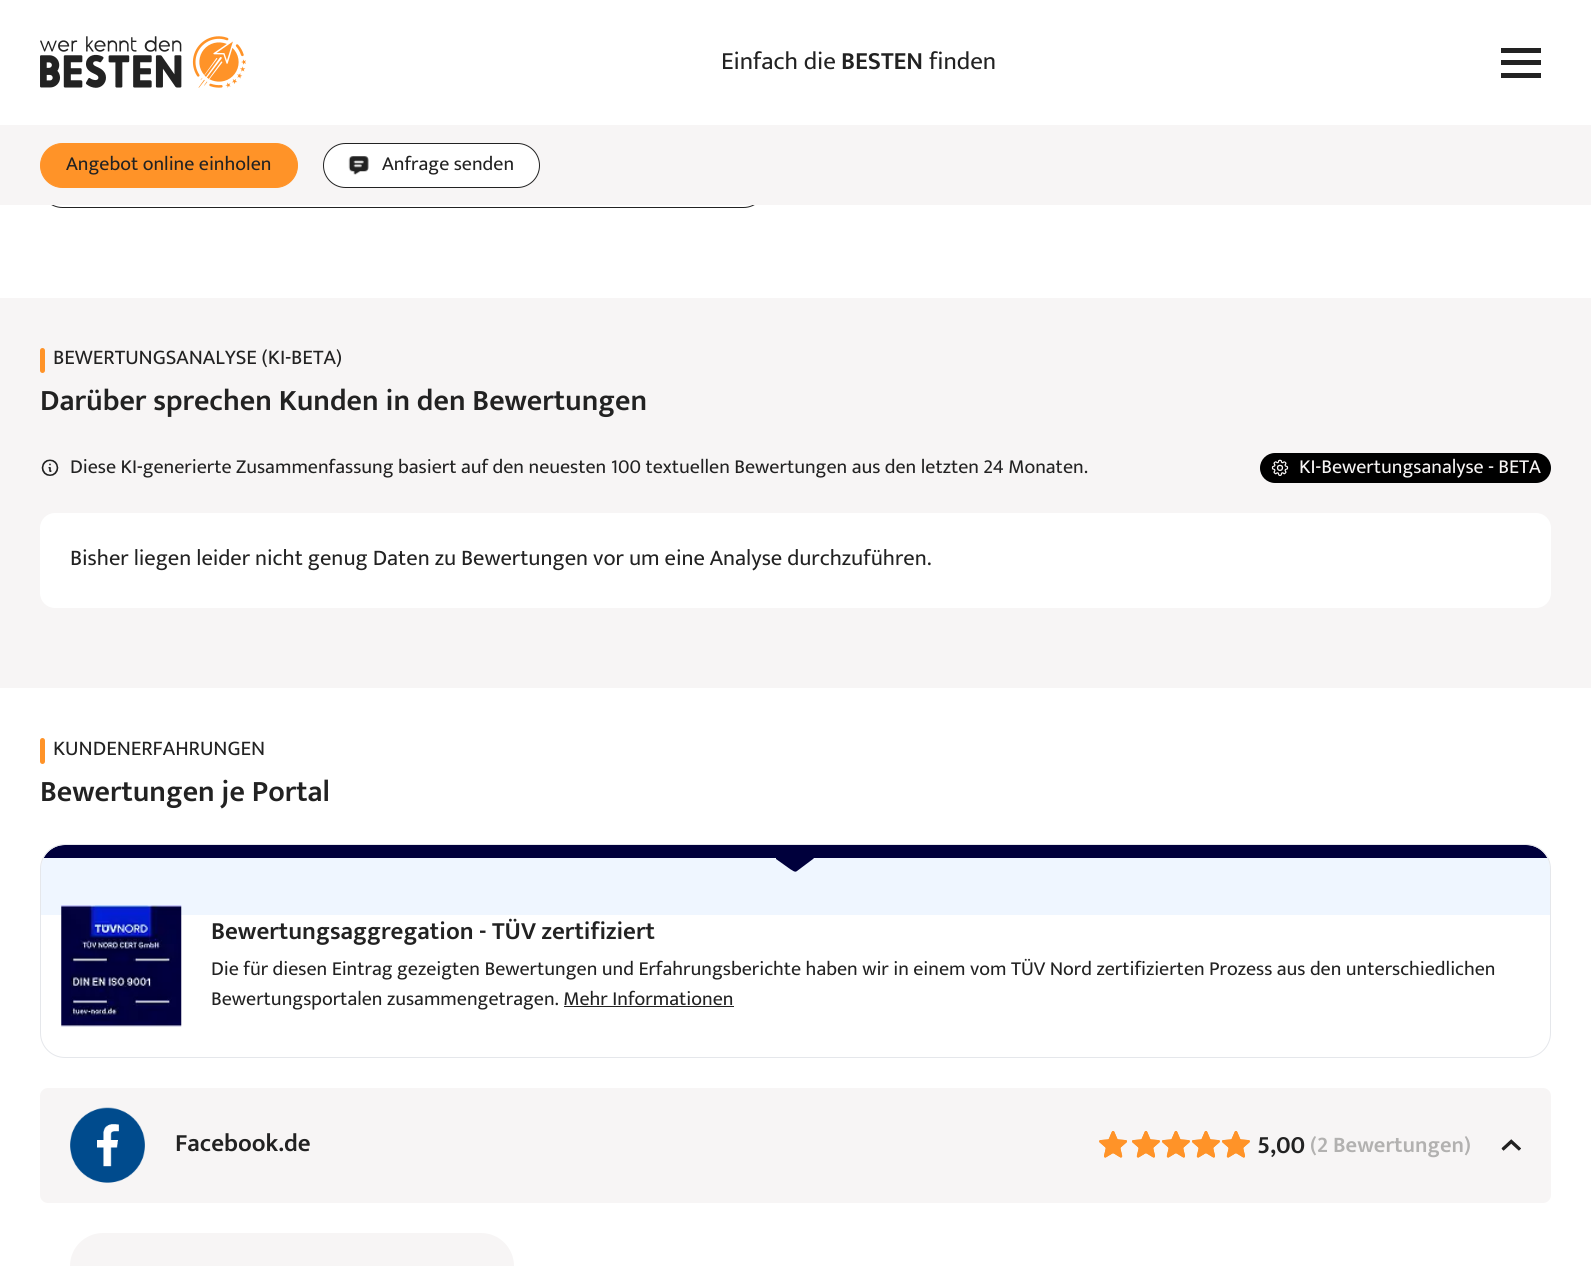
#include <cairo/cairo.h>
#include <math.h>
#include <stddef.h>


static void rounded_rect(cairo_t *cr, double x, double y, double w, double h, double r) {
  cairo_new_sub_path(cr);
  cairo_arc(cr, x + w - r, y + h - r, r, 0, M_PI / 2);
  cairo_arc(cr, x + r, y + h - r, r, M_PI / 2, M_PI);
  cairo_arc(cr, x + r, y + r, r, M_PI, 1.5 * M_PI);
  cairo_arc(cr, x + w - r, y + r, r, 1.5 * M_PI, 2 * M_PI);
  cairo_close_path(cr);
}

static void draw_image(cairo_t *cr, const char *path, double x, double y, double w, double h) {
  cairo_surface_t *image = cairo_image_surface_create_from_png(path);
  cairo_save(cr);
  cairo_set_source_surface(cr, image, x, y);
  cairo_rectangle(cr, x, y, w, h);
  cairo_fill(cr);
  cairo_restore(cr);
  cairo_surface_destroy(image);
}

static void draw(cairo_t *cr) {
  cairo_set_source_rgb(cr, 1, 1, 1);
  cairo_paint(cr);
  draw_image(cr, "images/1.png", 40, 36, 206, 52);
  cairo_set_source_rgb(cr, 34 / 255.0, 34 / 255.0, 34 / 255.0);
  cairo_rectangle(cr, 1501, 48, 40, 5);
  cairo_fill(cr);
  cairo_rectangle(cr, 1501, 60, 40, 5);
  cairo_fill(cr);
  cairo_rectangle(cr, 1501, 73, 40, 5);
  cairo_fill(cr);
  rounded_rect(cr, 40.5, 163.5, 725, 44, 22);
  cairo_set_line_width(cr, 1);
  cairo_stroke(cr);
  cairo_set_source_rgb(cr, 247 / 255.0, 245 / 255.0, 245 / 255.0);
  cairo_rectangle(cr, 0, 125, 1591, 80);
  cairo_fill(cr);
  cairo_set_source_rgb(cr, 1, 147 / 255.0, 40 / 255.0);
  rounded_rect(cr, 40.5, 143.5, 257, 44, 22);
  cairo_fill_preserve(cr);
  cairo_stroke(cr);
  cairo_set_source_rgb(cr, 1, 1, 1);
  rounded_rect(cr, 323.5, 143.5, 216, 44, 22);
  cairo_fill_preserve(cr);
  cairo_set_source_rgb(cr, 34 / 255.0, 34 / 255.0, 34 / 255.0);
  cairo_stroke(cr);
  draw_image(cr, "images/2.png", 348, 156, 21, 19);
  cairo_set_source_rgb(cr, 247 / 255.0, 245 / 255.0, 245 / 255.0);
  cairo_rectangle(cr, 0, 298, 1591, 390);
  cairo_fill(cr);
  cairo_set_source_rgb(cr, 1, 147 / 255.0, 40 / 255.0);
  rounded_rect(cr, 40, 348, 5, 25, 2.5);
  cairo_fill(cr);
  draw_image(cr, "images/3.png", 41, 459, 18, 17);
  cairo_set_source_rgb(cr, 0, 0, 0);
  rounded_rect(cr, 1260, 453, 291, 30, 15);
  cairo_fill(cr);
  draw_image(cr, "images/4.png", 1271, 459, 18, 17);
  cairo_set_source_rgb(cr, 1, 1, 1);
  rounded_rect(cr, 40, 513, 1511, 95, 15);
  cairo_fill(cr);
  cairo_set_source_rgb(cr, 1, 147 / 255.0, 40 / 255.0);
  rounded_rect(cr, 40, 738, 5, 26, 2.5);
  cairo_fill(cr);
  cairo_save(cr);
  rounded_rect(cr, 41, 845, 1509, 211, 24);
  cairo_clip(cr);
  cairo_set_source_rgb(cr, 239 / 255.0, 246 / 255.0, 1);
  cairo_rectangle(cr, 41, 858, 1509, 57);
  cairo_fill(cr);
  cairo_set_source_rgb(cr, 0, 0, 60 / 255.0);
  cairo_rectangle(cr, 43, 845, 1505, 13);
  cairo_fill(cr);
  cairo_restore(cr);
  cairo_set_source_rgb(cr, 0, 0, 60 / 255.0);
  cairo_new_path(cr);
  cairo_move_to(cr, 797, 871);
  cairo_curve_to(cr, 795, 873, 792, 870, 790, 869);
  cairo_line_to(cr, 776, 859);
  cairo_line_to(cr, 776, 854);
  cairo_curve_to(cr, 776, 853, 777, 853, 778, 853);
  cairo_line_to(cr, 812, 853);
  cairo_curve_to(cr, 814, 853, 816, 857, 813, 859);
  cairo_close_path(cr);
  cairo_fill(cr);
  rounded_rect(cr, 40.5, 844.5, 1510, 213, 24.5);
  cairo_set_source_rgb(cr, 229 / 255.0, 231 / 255.0, 235 / 255.0);
  cairo_stroke(cr);
  draw_image(cr, "images/5.png", 61, 905, 121, 122);
  cairo_set_source_rgb(cr, 34 / 255.0, 34 / 255.0, 34 / 255.0);
  cairo_rectangle(cr, 564, 1006, 170, 1);
  cairo_fill(cr);
  cairo_set_source_rgb(cr, 247 / 255.0, 245 / 255.0, 245 / 255.0);
  rounded_rect(cr, 40, 1088, 1511, 115, 8);
  cairo_fill(cr);
  draw_image(cr, "images/6.png", 70, 1107, 75, 76);
  draw_image(cr, "images/7.png", 1099, 1131, 151, 27);
  draw_image(cr, "images/8.png", 1501, 1139, 20, 12);
  rounded_rect(cr, 70, 1233, 444, 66, 33);
  cairo_fill(cr);
  cairo_select_font_face(cr, "Mukta", CAIRO_FONT_SLANT_NORMAL, CAIRO_FONT_WEIGHT_NORMAL);
  cairo_set_font_size(cr, 25);
  cairo_set_source_rgb(cr, 34 / 255.0, 34 / 255.0, 34 / 255.0);
  cairo_move_to(cr, 721, 69);
  cairo_show_text(cr, "Einfach die");
  cairo_select_font_face(cr, "Mukta SemiBold", CAIRO_FONT_SLANT_NORMAL, CAIRO_FONT_WEIGHT_NORMAL);
  cairo_move_to(cr, 841, 69);
  cairo_show_text(cr, "BESTEN");
  cairo_select_font_face(cr, "Mukta", CAIRO_FONT_SLANT_NORMAL, CAIRO_FONT_WEIGHT_NORMAL);
  cairo_move_to(cr, 929, 69);
  cairo_show_text(cr, "finden");
  cairo_set_font_size(cr, 20);
  cairo_move_to(cr, 66, 170);
  cairo_show_text(cr, "Angebot online einholen");
  cairo_move_to(cr, 382, 170);
  cairo_show_text(cr, "Anfrage senden");
  cairo_set_font_size(cr, 21);
  cairo_move_to(cr, 53, 364);
  cairo_show_text(cr, "BEWERTUNGSANALYSE (KI-BETA)");
  cairo_select_font_face(cr, "Mukta SemiBold", CAIRO_FONT_SLANT_NORMAL, CAIRO_FONT_WEIGHT_NORMAL);
  cairo_set_font_size(cr, 30);
  cairo_move_to(cr, 40, 410);
  cairo_show_text(cr, "Darüber sprechen Kunden in den Bewertungen");
  cairo_select_font_face(cr, "Mukta", CAIRO_FONT_SLANT_NORMAL, CAIRO_FONT_WEIGHT_NORMAL);
  cairo_set_font_size(cr, 20);
  cairo_move_to(cr, 70, 473);
  cairo_show_text(cr, "Diese KI-generierte Zusammenfassung basiert auf den neuesten 100 textuellen Bewertungen aus den letzten 24 Monaten.");
  cairo_set_source_rgb(cr, 247 / 255.0, 245 / 255.0, 245 / 255.0);
  cairo_move_to(cr, 1299, 473);
  cairo_show_text(cr, "KI-Bewertungsanalyse - BETA");
  cairo_set_font_size(cr, 22.5);
  cairo_set_source_rgb(cr, 34 / 255.0, 34 / 255.0, 34 / 255.0);
  cairo_move_to(cr, 70, 565);
  cairo_show_text(cr, "Bisher liegen leider nicht genug Daten zu Bewertungen vor um eine Analyse durchzuführen.");
  cairo_set_font_size(cr, 21);
  cairo_move_to(cr, 53, 755);
  cairo_show_text(cr, "KUNDENERFAHRUNGEN");
  cairo_select_font_face(cr, "Mukta SemiBold", CAIRO_FONT_SLANT_NORMAL, CAIRO_FONT_WEIGHT_NORMAL);
  cairo_set_font_size(cr, 30);
  cairo_move_to(cr, 40, 801);
  cairo_show_text(cr, "Bewertungen je Portal");
  cairo_set_font_size(cr, 25);
  cairo_move_to(cr, 211, 939);
  cairo_show_text(cr, "Bewertungsaggregation - TÜV zertifiziert");
  cairo_select_font_face(cr, "Mukta", CAIRO_FONT_SLANT_NORMAL, CAIRO_FONT_WEIGHT_NORMAL);
  cairo_set_font_size(cr, 20);
  cairo_move_to(cr, 211, 975);
  cairo_show_text(cr, "Die für diesen Eintrag gezeigten Bewertungen und Erfahrungsberichte haben wir in einem vom TÜV Nord zertifizierten Prozess aus den unterschiedlichen");
  cairo_move_to(cr, 211, 1005);
  cairo_show_text(cr, "Bewertungsportalen zusammengetragen. Mehr Informationen");
  cairo_select_font_face(cr, "Mukta SemiBold", CAIRO_FONT_SLANT_NORMAL, CAIRO_FONT_WEIGHT_NORMAL);
  cairo_set_font_size(cr, 25);
  cairo_move_to(cr, 175, 1151);
  cairo_show_text(cr, "Facebook.de");
  cairo_move_to(cr, 1257, 1153);
  cairo_show_text(cr, "5,00");
  cairo_set_font_size(cr, 22.5);
  cairo_set_source_rgb(cr, 178 / 255.0, 177 / 255.0, 176 / 255.0);
  cairo_move_to(cr, 1310, 1152);
  cairo_show_text(cr, "(2 Bewertungen)");
}

int main(void) {
  cairo_surface_t *surface = cairo_image_surface_create(CAIRO_FORMAT_RGB24, 1591, 1266);
  cairo_t *cr = cairo_create(surface);
  cairo_font_options_t *options = cairo_font_options_create();
  cairo_font_options_set_hint_metrics(options, CAIRO_HINT_METRICS_OFF);
  cairo_font_options_set_hint_style(options, CAIRO_HINT_STYLE_NONE);
  cairo_set_font_options(cr, options);
  cairo_set_miter_limit(cr, 4);
  draw(cr);
  cairo_surface_write_to_png(surface, "out.png");
  cairo_font_options_destroy(options);
  cairo_destroy(cr);
  cairo_surface_destroy(surface);
  return 0;
}
